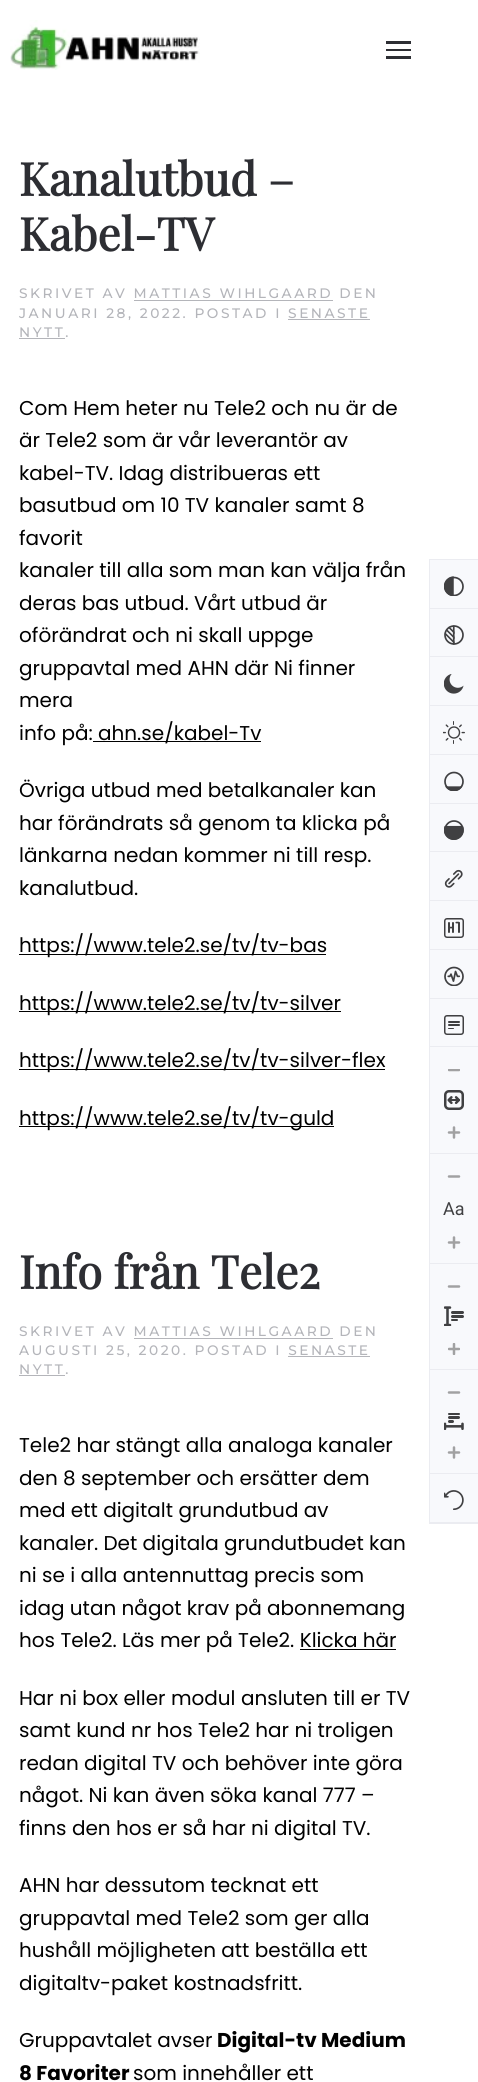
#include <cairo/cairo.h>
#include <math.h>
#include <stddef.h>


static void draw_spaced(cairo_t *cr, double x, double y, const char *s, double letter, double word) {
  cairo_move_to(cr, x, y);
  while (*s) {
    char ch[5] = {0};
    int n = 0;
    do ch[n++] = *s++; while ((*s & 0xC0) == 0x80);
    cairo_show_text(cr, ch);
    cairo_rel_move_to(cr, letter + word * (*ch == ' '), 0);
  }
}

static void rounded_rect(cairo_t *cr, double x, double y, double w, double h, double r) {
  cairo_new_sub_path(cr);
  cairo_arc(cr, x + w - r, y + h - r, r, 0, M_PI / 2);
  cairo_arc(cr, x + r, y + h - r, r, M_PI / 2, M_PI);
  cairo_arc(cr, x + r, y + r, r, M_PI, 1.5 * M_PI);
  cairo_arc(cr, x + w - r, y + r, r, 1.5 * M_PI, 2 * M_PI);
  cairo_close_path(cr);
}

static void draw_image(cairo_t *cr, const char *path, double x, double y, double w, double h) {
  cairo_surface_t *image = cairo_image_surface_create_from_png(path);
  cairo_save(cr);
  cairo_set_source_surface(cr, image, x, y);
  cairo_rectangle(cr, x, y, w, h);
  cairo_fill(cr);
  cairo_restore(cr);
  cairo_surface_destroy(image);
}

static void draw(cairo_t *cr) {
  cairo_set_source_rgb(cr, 1, 1, 1);
  cairo_paint(cr);
  draw_image(cr, "images/1.png", 10, 20, 190, 50);
  cairo_set_source_rgb(cr, 45 / 255.0, 46 / 255.0, 51 / 255.0);
  cairo_rectangle(cr, 386, 41, 25, 3);
  cairo_fill(cr);
  cairo_rectangle(cr, 386, 49, 25, 2);
  cairo_fill(cr);
  cairo_rectangle(cr, 386, 56, 25, 3);
  cairo_fill(cr);
  cairo_set_source_rgb(cr, 180 / 255.0, 181 / 255.0, 186 / 255.0);
  cairo_rectangle(cr, 134, 300, 199, 1);
  cairo_fill(cr);
  cairo_rectangle(cr, 288, 319, 82, 1);
  cairo_fill(cr);
  cairo_rectangle(cr, 19, 338, 46, 1);
  cairo_fill(cr);
  cairo_set_source_rgb(cr, 0, 0, 0);
  cairo_rectangle(cr, 93, 741, 168, 1);
  cairo_fill(cr);
  cairo_rectangle(cr, 19, 954, 307, 1);
  cairo_fill(cr);
  cairo_rectangle(cr, 19, 1011, 322, 1);
  cairo_fill(cr);
  cairo_rectangle(cr, 19, 1069, 366, 1);
  cairo_fill(cr);
  cairo_rectangle(cr, 19, 1126, 315, 1);
  cairo_fill(cr);
  cairo_set_source_rgb(cr, 180 / 255.0, 181 / 255.0, 186 / 255.0);
  cairo_rectangle(cr, 134, 1338, 199, 1);
  cairo_fill(cr);
  cairo_rectangle(cr, 288, 1356, 82, 1);
  cairo_fill(cr);
  cairo_rectangle(cr, 19, 1375, 46, 1);
  cairo_fill(cr);
  cairo_set_source_rgb(cr, 0, 0, 0);
  cairo_rectangle(cr, 300, 1649, 96, 1);
  cairo_fill(cr);
  cairo_rectangle(cr, 429.5, 559.5, 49, 964);
  cairo_set_source_rgb(cr, 235 / 255.0, 236 / 255.0, 241 / 255.0);
  cairo_set_line_width(cr, 1);
  cairo_stroke(cr);
  cairo_set_source_rgb(cr, 248 / 255.0, 249 / 255.0, 252 / 255.0);
  cairo_rectangle(cr, 429.5, 559.5, 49, 49);
  cairo_fill_preserve(cr);
  cairo_set_source_rgb(cr, 235 / 255.0, 236 / 255.0, 241 / 255.0);
  cairo_stroke(cr);
  draw_image(cr, "images/2.png", 444, 576, 20, 20);
  cairo_set_source_rgb(cr, 248 / 255.0, 249 / 255.0, 252 / 255.0);
  cairo_rectangle(cr, 430, 609, 48, 47);
  cairo_fill(cr);
  cairo_rectangle(cr, 429.5, 608.5, 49, 49);
  cairo_set_source_rgb(cr, 235 / 255.0, 236 / 255.0, 241 / 255.0);
  cairo_stroke(cr);
  draw_image(cr, "images/3.png", 444, 625, 20, 20);
  cairo_set_source_rgb(cr, 248 / 255.0, 249 / 255.0, 252 / 255.0);
  cairo_rectangle(cr, 429.5, 656.5, 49, 49);
  cairo_fill_preserve(cr);
  cairo_set_source_rgb(cr, 235 / 255.0, 236 / 255.0, 241 / 255.0);
  cairo_stroke(cr);
  draw_image(cr, "images/4.png", 444, 674, 20, 20);
  cairo_set_source_rgb(cr, 248 / 255.0, 249 / 255.0, 252 / 255.0);
  cairo_rectangle(cr, 429.5, 705.5, 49, 49);
  cairo_fill_preserve(cr);
  cairo_set_source_rgb(cr, 235 / 255.0, 236 / 255.0, 241 / 255.0);
  cairo_stroke(cr);
  draw_image(cr, "images/5.png", 443, 721, 22, 23);
  cairo_set_source_rgb(cr, 248 / 255.0, 249 / 255.0, 252 / 255.0);
  cairo_rectangle(cr, 429.5, 754.5, 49, 49);
  cairo_fill_preserve(cr);
  cairo_set_source_rgb(cr, 235 / 255.0, 236 / 255.0, 241 / 255.0);
  cairo_stroke(cr);
  draw_image(cr, "images/6.png", 444, 771, 20, 20);
  cairo_set_source_rgb(cr, 248 / 255.0, 249 / 255.0, 252 / 255.0);
  cairo_rectangle(cr, 430, 804, 48, 47);
  cairo_fill(cr);
  cairo_rectangle(cr, 429.5, 803.5, 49, 49);
  cairo_set_source_rgb(cr, 235 / 255.0, 236 / 255.0, 241 / 255.0);
  cairo_stroke(cr);
  draw_image(cr, "images/7.png", 444, 820, 20, 20);
  cairo_set_source_rgb(cr, 248 / 255.0, 249 / 255.0, 252 / 255.0);
  cairo_rectangle(cr, 429.5, 851.5, 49, 49);
  cairo_fill_preserve(cr);
  cairo_set_source_rgb(cr, 235 / 255.0, 236 / 255.0, 241 / 255.0);
  cairo_stroke(cr);
  draw_image(cr, "images/8.png", 444, 869, 19, 19);
  cairo_set_source_rgb(cr, 248 / 255.0, 249 / 255.0, 252 / 255.0);
  cairo_rectangle(cr, 429.5, 900.5, 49, 49);
  cairo_fill_preserve(cr);
  cairo_set_source_rgb(cr, 235 / 255.0, 236 / 255.0, 241 / 255.0);
  cairo_stroke(cr);
  draw_image(cr, "images/9.png", 444, 918, 20, 20);
  cairo_set_source_rgb(cr, 248 / 255.0, 249 / 255.0, 252 / 255.0);
  cairo_rectangle(cr, 429.5, 949.5, 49, 49);
  cairo_fill_preserve(cr);
  cairo_set_source_rgb(cr, 235 / 255.0, 236 / 255.0, 241 / 255.0);
  cairo_stroke(cr);
  draw_image(cr, "images/10.png", 444, 966, 20, 20);
  cairo_set_source_rgb(cr, 248 / 255.0, 249 / 255.0, 252 / 255.0);
  cairo_rectangle(cr, 430, 999, 48, 47);
  cairo_fill(cr);
  cairo_rectangle(cr, 429.5, 998.5, 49, 49);
  cairo_set_source_rgb(cr, 235 / 255.0, 236 / 255.0, 241 / 255.0);
  cairo_stroke(cr);
  rounded_rect(cr, 444.75, 1015.75, 18.5, 18.5, 2.25);
  cairo_set_source_rgb(cr, 64 / 255.0, 64 / 255.0, 66 / 255.0);
  cairo_set_line_width(cr, 1.5);
  cairo_stroke(cr);
  rounded_rect(cr, 448, 1021, 12, 2, 1);
  cairo_fill(cr);
  rounded_rect(cr, 448, 1024, 12, 2, 1);
  cairo_fill(cr);
  rounded_rect(cr, 448, 1028, 6, 1, 0.5);
  cairo_fill(cr);
  cairo_set_source_rgb(cr, 248 / 255.0, 249 / 255.0, 252 / 255.0);
  cairo_rectangle(cr, 429.5, 1046.5, 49, 107);
  cairo_fill_preserve(cr);
  cairo_set_source_rgb(cr, 235 / 255.0, 236 / 255.0, 241 / 255.0);
  cairo_set_line_width(cr, 1);
  cairo_stroke(cr);
  cairo_save(cr);
  cairo_rectangle(cr, 448, 1069, 12, 3);
  cairo_clip(cr);
  cairo_new_path(cr);
  cairo_move_to(cr, 459, 1070);
  cairo_line_to(cr, 449, 1070);
  cairo_set_source_rgb(cr, 161 / 255.0, 161 / 255.0, 162 / 255.0);
  cairo_set_line_width(cr, 2.5);
  cairo_set_line_cap(cr, CAIRO_LINE_CAP_ROUND);
  cairo_stroke(cr);
  cairo_restore(cr);
  draw_image(cr, "images/11.png", 444, 1090, 20, 20);
  cairo_new_path(cr);
  cairo_move_to(cr, 454, 1127.5);
  cairo_line_to(cr, 454, 1137.5);
  cairo_move_to(cr, 459, 1132.5);
  cairo_line_to(cr, 449, 1132.5);
  cairo_set_source_rgb(cr, 161 / 255.0, 161 / 255.0, 162 / 255.0);
  cairo_set_line_width(cr, 2.5);
  cairo_set_line_cap(cr, CAIRO_LINE_CAP_ROUND);
  cairo_stroke(cr);
  cairo_set_source_rgb(cr, 248 / 255.0, 249 / 255.0, 252 / 255.0);
  cairo_rectangle(cr, 429.5, 1153.5, 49, 110);
  cairo_fill_preserve(cr);
  cairo_set_source_rgb(cr, 235 / 255.0, 236 / 255.0, 241 / 255.0);
  cairo_set_line_width(cr, 1);
  cairo_set_line_cap(cr, CAIRO_LINE_CAP_BUTT);
  cairo_stroke(cr);
  cairo_new_path(cr);
  cairo_move_to(cr, 459, 1176.5);
  cairo_line_to(cr, 449, 1176.5);
  cairo_set_source_rgb(cr, 161 / 255.0, 161 / 255.0, 162 / 255.0);
  cairo_set_line_width(cr, 2.5);
  cairo_set_line_cap(cr, CAIRO_LINE_CAP_ROUND);
  cairo_stroke(cr);
  cairo_new_path(cr);
  cairo_move_to(cr, 454, 1237.5);
  cairo_line_to(cr, 454, 1247.5);
  cairo_move_to(cr, 459, 1242.5);
  cairo_line_to(cr, 449, 1242.5);
  cairo_stroke(cr);
  cairo_set_source_rgb(cr, 248 / 255.0, 249 / 255.0, 252 / 255.0);
  cairo_rectangle(cr, 429.5, 1263.5, 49, 106);
  cairo_fill_preserve(cr);
  cairo_set_source_rgb(cr, 235 / 255.0, 236 / 255.0, 241 / 255.0);
  cairo_set_line_width(cr, 1);
  cairo_set_line_cap(cr, CAIRO_LINE_CAP_BUTT);
  cairo_stroke(cr);
  cairo_new_path(cr);
  cairo_move_to(cr, 459, 1286.5);
  cairo_line_to(cr, 449, 1286.5);
  cairo_set_source_rgb(cr, 161 / 255.0, 161 / 255.0, 162 / 255.0);
  cairo_set_line_width(cr, 2.5);
  cairo_set_line_cap(cr, CAIRO_LINE_CAP_ROUND);
  cairo_stroke(cr);
  draw_image(cr, "images/12.png", 444, 1306, 20, 20);
  cairo_save(cr);
  cairo_rectangle(cr, 448, 1343, 12, 12);
  cairo_clip(cr);
  cairo_new_path(cr);
  cairo_move_to(cr, 454, 1344);
  cairo_line_to(cr, 454, 1354);
  cairo_move_to(cr, 459, 1349);
  cairo_line_to(cr, 449, 1349);
  cairo_stroke(cr);
  cairo_restore(cr);
  cairo_set_source_rgb(cr, 248 / 255.0, 249 / 255.0, 252 / 255.0);
  cairo_rectangle(cr, 429.5, 1369.5, 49, 104);
  cairo_fill_preserve(cr);
  cairo_set_source_rgb(cr, 235 / 255.0, 236 / 255.0, 241 / 255.0);
  cairo_set_line_width(cr, 1);
  cairo_set_line_cap(cr, CAIRO_LINE_CAP_BUTT);
  cairo_stroke(cr);
  cairo_new_path(cr);
  cairo_move_to(cr, 459, 1392.5);
  cairo_line_to(cr, 449, 1392.5);
  cairo_set_source_rgb(cr, 161 / 255.0, 161 / 255.0, 162 / 255.0);
  cairo_set_line_width(cr, 2.5);
  cairo_set_line_cap(cr, CAIRO_LINE_CAP_ROUND);
  cairo_stroke(cr);
  draw_image(cr, "images/13.png", 444, 1413, 20, 17);
  cairo_new_path(cr);
  cairo_move_to(cr, 454, 1447.5);
  cairo_line_to(cr, 454, 1457.5);
  cairo_move_to(cr, 459, 1452.5);
  cairo_line_to(cr, 449, 1452.5);
  cairo_stroke(cr);
  cairo_set_source_rgb(cr, 248 / 255.0, 249 / 255.0, 252 / 255.0);
  cairo_rectangle(cr, 429.5, 1473.5, 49, 49);
  cairo_fill_preserve(cr);
  cairo_set_source_rgb(cr, 235 / 255.0, 236 / 255.0, 241 / 255.0);
  cairo_set_line_width(cr, 1);
  cairo_set_line_cap(cr, CAIRO_LINE_CAP_BUTT);
  cairo_stroke(cr);
  draw_image(cr, "images/14.png", 444, 1490, 20, 20);
  cairo_select_font_face(cr, "Playfair Display", CAIRO_FONT_SLANT_NORMAL, CAIRO_FONT_WEIGHT_BOLD);
  cairo_set_font_size(cr, 45.75);
  cairo_set_source_rgb(cr, 45 / 255.0, 46 / 255.0, 51 / 255.0);
  cairo_move_to(cr, 19, 196);
  cairo_show_text(cr, "Kanalutbud –");
  cairo_move_to(cr, 19, 251);
  cairo_show_text(cr, "Kabel-TV");
  cairo_select_font_face(cr, "Montserrat Thin", CAIRO_FONT_SLANT_NORMAL, CAIRO_FONT_WEIGHT_NORMAL);
  cairo_set_font_size(cr, 13.75);
  cairo_set_source_rgb(cr, 180 / 255.0, 181 / 255.0, 186 / 255.0);
  draw_spaced(cr, 19, 298, "SKRIVET AV MATTIAS WIHLGAARD DEN", 2.5, 0);
  draw_spaced(cr, 19, 318, "JANUARI 28, 2022. POSTAD I SENASTE", 2.5, 0);
  draw_spaced(cr, 19, 337, "NYTT.", 2.5, 0);
  cairo_select_font_face(cr, "Poppins", CAIRO_FONT_SLANT_NORMAL, CAIRO_FONT_WEIGHT_NORMAL);
  cairo_set_font_size(cr, 20);
  cairo_set_source_rgb(cr, 0, 0, 0);
  cairo_move_to(cr, 19, 415);
  cairo_show_text(cr, "Com Hem heter nu Tele2 och nu är de");
  cairo_move_to(cr, 19, 447);
  cairo_show_text(cr, "är Tele2 som är vår leverantör av");
  cairo_move_to(cr, 19, 480);
  cairo_show_text(cr, "kabel-TV. Idag distribueras ett");
  cairo_move_to(cr, 19, 512);
  cairo_show_text(cr, "basutbud om 10 TV kanaler samt 8");
  cairo_move_to(cr, 19, 545);
  cairo_show_text(cr, "favorit");
  cairo_move_to(cr, 19, 577);
  cairo_show_text(cr, "kanaler till alla som man kan välja från");
  cairo_move_to(cr, 19, 610);
  cairo_show_text(cr, "deras bas utbud. Vårt utbud är");
  cairo_move_to(cr, 19, 642);
  cairo_show_text(cr, "oförändrat och ni skall uppge");
  cairo_move_to(cr, 19, 675);
  cairo_show_text(cr, "gruppavtal med AHN där Ni finner");
  cairo_move_to(cr, 19, 707);
  cairo_show_text(cr, "mera");
  cairo_move_to(cr, 19, 740);
  cairo_show_text(cr, "info på:");
  cairo_move_to(cr, 98, 740);
  cairo_show_text(cr, "ahn.se/kabel-Tv");
  cairo_move_to(cr, 19, 797);
  cairo_show_text(cr, "Övriga utbud med betalkanaler kan");
  cairo_move_to(cr, 19, 830);
  cairo_show_text(cr, "har förändrats så genom ta klicka på");
  cairo_move_to(cr, 19, 862);
  cairo_show_text(cr, "länkarna nedan kommer ni till resp.");
  cairo_move_to(cr, 19, 895);
  cairo_show_text(cr, "kanalutbud.");
  cairo_move_to(cr, 19, 952);
  cairo_show_text(cr, "https://www.tele2.se/tv/tv-bas");
  cairo_move_to(cr, 19, 1010);
  cairo_show_text(cr, "https://www.tele2.se/tv/tv-silver");
  cairo_move_to(cr, 19, 1067);
  cairo_show_text(cr, "https://www.tele2.se/tv/tv-silver-flex");
  cairo_move_to(cr, 19, 1125);
  cairo_show_text(cr, "https://www.tele2.se/tv/tv-guld");
  cairo_select_font_face(cr, "Playfair Display", CAIRO_FONT_SLANT_NORMAL, CAIRO_FONT_WEIGHT_BOLD);
  cairo_set_font_size(cr, 45.75);
  cairo_set_source_rgb(cr, 45 / 255.0, 46 / 255.0, 51 / 255.0);
  cairo_move_to(cr, 19, 1289);
  cairo_show_text(cr, "Info från Tele2");
  cairo_select_font_face(cr, "Montserrat Thin", CAIRO_FONT_SLANT_NORMAL, CAIRO_FONT_WEIGHT_NORMAL);
  cairo_set_font_size(cr, 13.75);
  cairo_set_source_rgb(cr, 180 / 255.0, 181 / 255.0, 186 / 255.0);
  draw_spaced(cr, 19, 1336, "SKRIVET AV MATTIAS WIHLGAARD DEN", 2.5, 0);
  draw_spaced(cr, 19, 1355, "AUGUSTI 25, 2020. POSTAD I SENASTE", 2.5, 0);
  draw_spaced(cr, 19, 1374, "NYTT.", 2.5, 0);
  cairo_select_font_face(cr, "Poppins", CAIRO_FONT_SLANT_NORMAL, CAIRO_FONT_WEIGHT_NORMAL);
  cairo_set_font_size(cr, 20);
  cairo_set_source_rgb(cr, 0, 0, 0);
  cairo_move_to(cr, 19, 1452);
  cairo_show_text(cr, "Tele2 har stängt alla analoga kanaler");
  cairo_move_to(cr, 19, 1485);
  cairo_show_text(cr, "den 8 september och ersätter dem");
  cairo_move_to(cr, 19, 1517);
  cairo_show_text(cr, "med ett digitalt grundutbud av");
  cairo_move_to(cr, 19, 1550);
  cairo_show_text(cr, "kanaler. Det digitala grundutbudet kan");
  cairo_move_to(cr, 19, 1582);
  cairo_show_text(cr, "ni se i alla antennuttag precis som");
  cairo_move_to(cr, 19, 1615);
  cairo_show_text(cr, "idag utan något krav på abonnemang");
  cairo_move_to(cr, 19, 1647);
  cairo_show_text(cr, "hos Tele2. Läs mer på Tele2. Klicka här");
  cairo_move_to(cr, 19, 1705);
  cairo_show_text(cr, "Har ni box eller modul ansluten till er TV");
  cairo_move_to(cr, 19, 1737);
  cairo_show_text(cr, "samt kund nr hos Tele2 har ni troligen");
  cairo_move_to(cr, 19, 1770);
  cairo_show_text(cr, "redan digital TV och behöver inte göra");
  cairo_move_to(cr, 19, 1802);
  cairo_show_text(cr, "något. Ni kan även söka kanal 777 –");
  cairo_move_to(cr, 19, 1835);
  cairo_show_text(cr, "finns den hos er så har ni digital TV.");
  cairo_move_to(cr, 19, 1892);
  cairo_show_text(cr, "AHN har dessutom tecknat ett");
  cairo_move_to(cr, 19, 1925);
  cairo_show_text(cr, "gruppavtal med Tele2 som ger alla");
  cairo_move_to(cr, 19, 1957);
  cairo_show_text(cr, "hushåll möjligheten att beställa ett");
  cairo_move_to(cr, 19, 1990);
  cairo_show_text(cr, "digitaltv-paket kostnadsfritt.");
  cairo_move_to(cr, 19, 2047);
  cairo_show_text(cr, "Gruppavtalet avser");
  cairo_select_font_face(cr, "Poppins", CAIRO_FONT_SLANT_NORMAL, CAIRO_FONT_WEIGHT_BOLD);
  cairo_move_to(cr, 217, 2047);
  cairo_show_text(cr, "Digital-tv Medium");
  cairo_move_to(cr, 19, 2080);
  cairo_show_text(cr, "8 Favoriter");
  cairo_select_font_face(cr, "Poppins", CAIRO_FONT_SLANT_NORMAL, CAIRO_FONT_WEIGHT_NORMAL);
  cairo_move_to(cr, 133, 2080);
  cairo_show_text(cr, "som innehåller ett");
  cairo_select_font_face(cr, "Roboto", CAIRO_FONT_SLANT_NORMAL, CAIRO_FONT_WEIGHT_NORMAL);
  cairo_set_font_size(cr, 18);
  cairo_set_source_rgb(cr, 64 / 255.0, 64 / 255.0, 66 / 255.0);
  cairo_move_to(cr, 443, 1215);
  cairo_show_text(cr, "Aa");
}

int main(void) {
  cairo_surface_t *surface = cairo_image_surface_create(CAIRO_FORMAT_RGB24, 478, 2082);
  cairo_t *cr = cairo_create(surface);
  cairo_font_options_t *options = cairo_font_options_create();
  cairo_font_options_set_hint_metrics(options, CAIRO_HINT_METRICS_OFF);
  cairo_font_options_set_hint_style(options, CAIRO_HINT_STYLE_NONE);
  cairo_set_font_options(cr, options);
  cairo_set_miter_limit(cr, 4);
  draw(cr);
  cairo_surface_write_to_png(surface, "out.png");
  cairo_font_options_destroy(options);
  cairo_destroy(cr);
  cairo_surface_destroy(surface);
  return 0;
}
